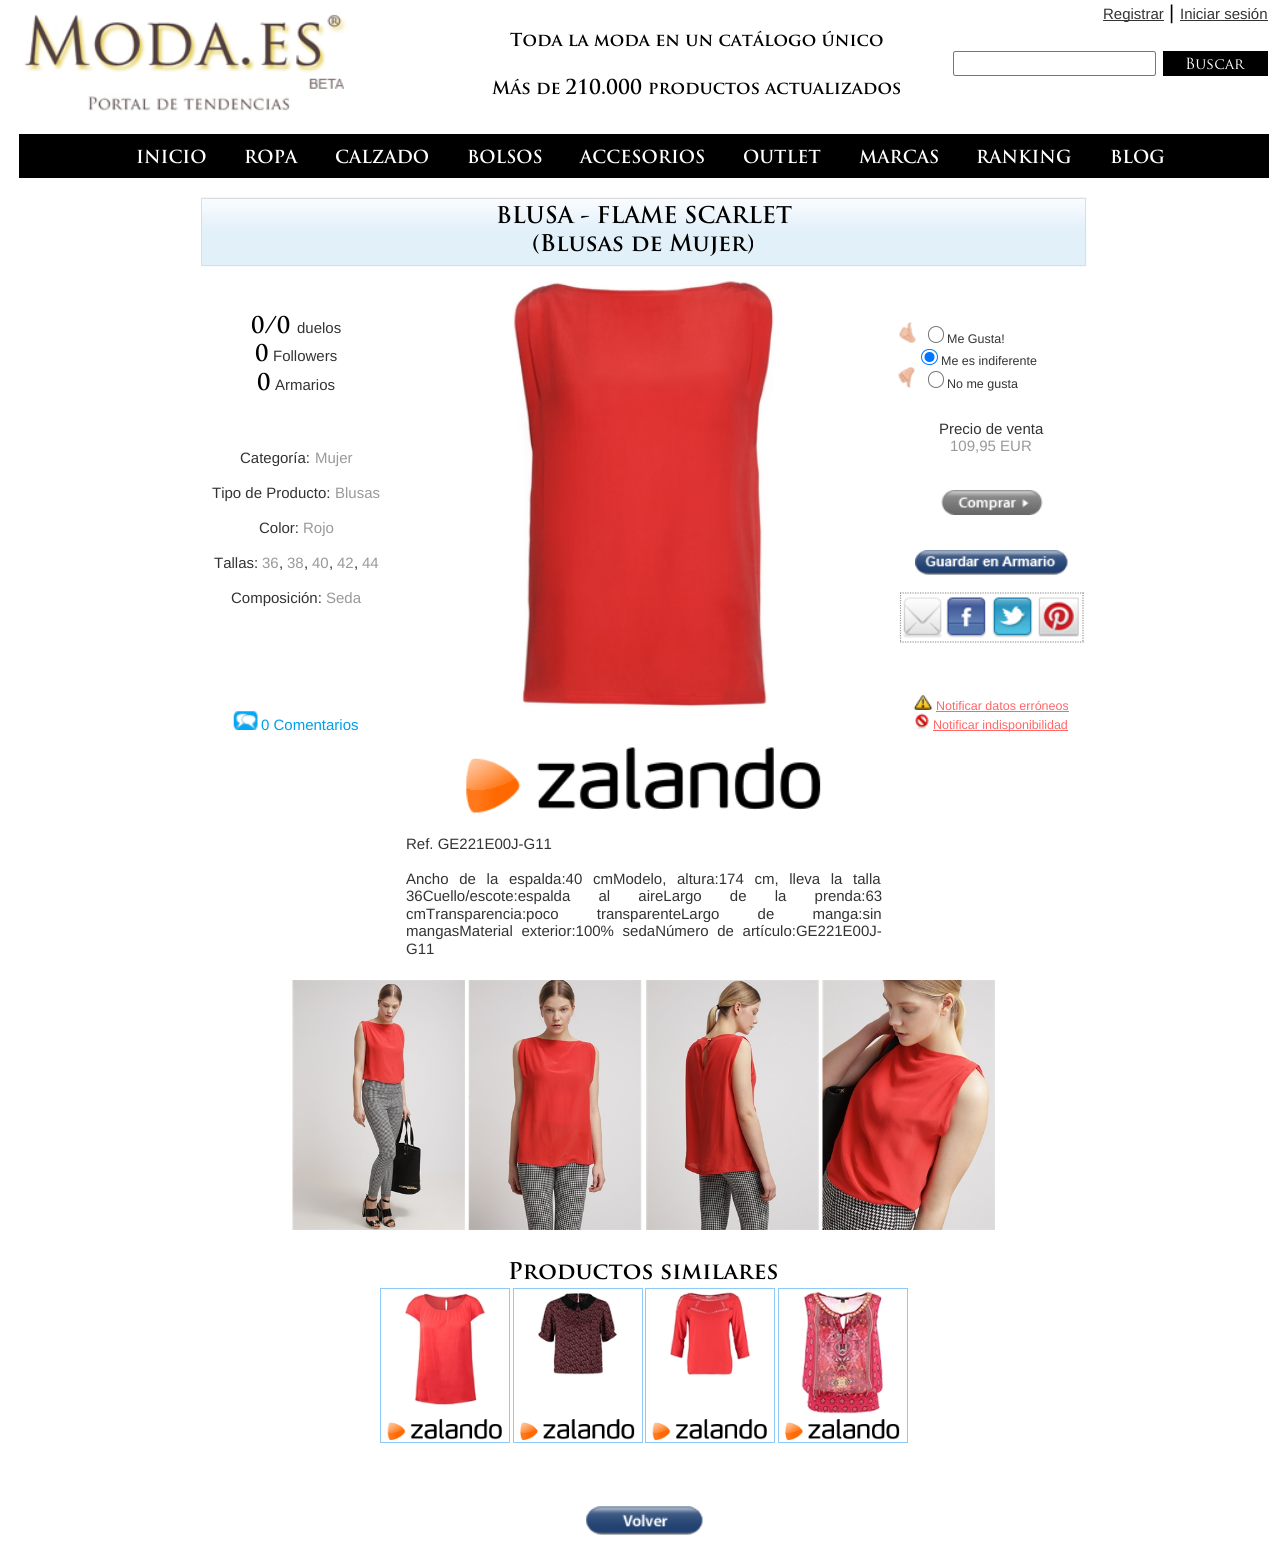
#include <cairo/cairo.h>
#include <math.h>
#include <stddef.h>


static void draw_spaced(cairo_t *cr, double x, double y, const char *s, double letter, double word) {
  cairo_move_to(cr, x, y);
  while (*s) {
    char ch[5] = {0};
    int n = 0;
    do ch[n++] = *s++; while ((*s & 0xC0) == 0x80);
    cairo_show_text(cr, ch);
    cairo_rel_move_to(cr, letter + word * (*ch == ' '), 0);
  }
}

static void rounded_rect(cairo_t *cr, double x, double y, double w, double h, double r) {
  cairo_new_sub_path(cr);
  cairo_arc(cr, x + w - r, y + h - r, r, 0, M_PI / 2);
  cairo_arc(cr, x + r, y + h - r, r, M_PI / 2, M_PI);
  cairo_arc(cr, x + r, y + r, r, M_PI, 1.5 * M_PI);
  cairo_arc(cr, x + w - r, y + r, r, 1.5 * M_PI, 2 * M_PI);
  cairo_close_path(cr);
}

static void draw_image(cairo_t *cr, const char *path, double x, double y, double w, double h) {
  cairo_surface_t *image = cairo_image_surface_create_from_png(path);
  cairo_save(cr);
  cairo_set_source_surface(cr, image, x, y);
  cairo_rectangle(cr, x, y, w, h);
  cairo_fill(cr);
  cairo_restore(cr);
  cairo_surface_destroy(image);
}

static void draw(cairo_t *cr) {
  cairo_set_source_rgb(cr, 1, 1, 1);
  cairo_paint(cr);
  draw_image(cr, "images/1.png", 24, 14, 323, 97);
  cairo_set_source_rgb(cr, 51 / 255.0, 51 / 255.0, 51 / 255.0);
  cairo_rectangle(cr, 1103, 20, 61, 1);
  cairo_fill(cr);
  cairo_rectangle(cr, 1180, 20, 88, 1);
  cairo_fill(cr);
  rounded_rect(cr, 953.5, 51.5, 202, 24, 2);
  cairo_set_source_rgb(cr, 118 / 255.0, 118 / 255.0, 118 / 255.0);
  cairo_set_line_width(cr, 1);
  cairo_stroke(cr);
  cairo_set_source_rgb(cr, 0, 0, 0);
  cairo_rectangle(cr, 1163, 51, 105, 25);
  cairo_fill(cr);
  cairo_rectangle(cr, 19, 134, 1250, 44);
  cairo_fill(cr);
  draw_image(cr, "images/2.png", 201, 197, 886, 70);
  cairo_rectangle(cr, 201.5, 198.5, 884, 67);
  cairo_set_source_rgb(cr, 221 / 255.0, 221 / 255.0, 221 / 255.0);
  cairo_stroke(cr);
  draw_image(cr, "images/3.png", 233, 711, 25, 19);
  draw_image(cr, "images/4.png", 899, 322, 17, 21);
  rounded_rect(cr, 928.5, 326.5, 15, 16, 7.5);
  cairo_set_source_rgb(cr, 118 / 255.0, 118 / 255.0, 118 / 255.0);
  cairo_stroke(cr);
  rounded_rect(cr, 921.5, 349.5, 16, 15, 7.5);
  cairo_set_source_rgb(cr, 0, 117 / 255.0, 1);
  cairo_stroke(cr);
  cairo_arc(cr, 929.5, 357, 5, 0, 2 * M_PI);
  cairo_fill(cr);
  draw_image(cr, "images/5.png", 898, 367, 17, 21);
  rounded_rect(cr, 928.5, 371.5, 15, 16, 7.5);
  cairo_set_source_rgb(cr, 118 / 255.0, 118 / 255.0, 118 / 255.0);
  cairo_stroke(cr);
  draw_image(cr, "images/6.png", 941, 490, 102, 25);
  draw_image(cr, "images/7.png", 915, 550, 153, 25);
  cairo_new_path(cr);
  cairo_move_to(cr, 900, 593);
  cairo_line_to(cr, 1084, 593);
  cairo_set_source_rgb(cr, 153 / 255.0, 153 / 255.0, 153 / 255.0);
  cairo_set_line_width(cr, 1.2);
  cairo_set_dash(cr, (double[]){1.25, 1.25}, 2, 0);
  cairo_stroke(cr);
  cairo_new_path(cr);
  cairo_move_to(cr, 1083, 592.5);
  cairo_line_to(cr, 1083, 642.5);
  cairo_stroke(cr);
  cairo_new_path(cr);
  cairo_move_to(cr, 900, 642);
  cairo_line_to(cr, 1084, 642);
  cairo_stroke(cr);
  cairo_new_path(cr);
  cairo_move_to(cr, 900.5, 592.5);
  cairo_line_to(cr, 900.5, 642.5);
  cairo_stroke(cr);
  draw_image(cr, "images/8.png", 903, 597, 39, 41);
  draw_image(cr, "images/9.png", 946, 597, 40, 41);
  draw_image(cr, "images/10.png", 992, 597, 41, 41);
  draw_image(cr, "images/11.png", 1038, 597, 41, 40);
  draw_image(cr, "images/12.png", 913, 695, 20, 15);
  cairo_set_source_rgb(cr, 1, 102 / 255.0, 102 / 255.0);
  cairo_rectangle(cr, 936, 711, 133, 1);
  cairo_fill(cr);
  draw_image(cr, "images/13.png", 915, 713, 14, 16);
  cairo_rectangle(cr, 933, 730, 135, 1);
  cairo_fill(cr);
  draw_image(cr, "images/14.png", 512, 280, 262, 428);
  draw_image(cr, "images/15.png", 466, 747, 355, 66);
  draw_image(cr, "images/16.png", 292, 980, 173, 250);
  draw_image(cr, "images/17.png", 468, 980, 174, 250);
  draw_image(cr, "images/18.png", 646, 980, 173, 250);
  draw_image(cr, "images/19.png", 822, 980, 173, 250);
  cairo_rectangle(cr, 380.5, 1288.5, 129, 154);
  cairo_set_source_rgb(cr, 141 / 255.0, 201 / 255.0, 249 / 255.0);
  cairo_set_line_width(cr, 1);
  cairo_set_dash(cr, NULL, 0, 0);
  cairo_stroke(cr);
  draw_image(cr, "images/20.png", 405, 1293, 81, 113);
  draw_image(cr, "images/21.png", 387, 1419, 115, 21);
  cairo_rectangle(cr, 513.5, 1288.5, 129, 154);
  cairo_stroke(cr);
  draw_image(cr, "images/22.png", 538, 1292, 79, 83);
  draw_image(cr, "images/23.png", 520, 1419, 115, 21);
  cairo_rectangle(cr, 645.5, 1288.5, 129, 154);
  cairo_stroke(cr);
  draw_image(cr, "images/24.png", 669, 1292, 82, 84);
  draw_image(cr, "images/21.png", 652, 1419, 115, 21);
  cairo_rectangle(cr, 778.5, 1288.5, 129, 154);
  cairo_stroke(cr);
  draw_image(cr, "images/25.png", 801, 1290, 83, 124);
  draw_image(cr, "images/23.png", 785, 1419, 115, 21);
  draw_image(cr, "images/26.png", 586, 1506, 117, 29);
  cairo_select_font_face(cr, "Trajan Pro", CAIRO_FONT_SLANT_NORMAL, CAIRO_FONT_WEIGHT_BOLD);
  cairo_set_font_size(cr, 17.5);
  cairo_set_source_rgb(cr, 0, 0, 0);
  cairo_move_to(cr, 510, 46);
  cairo_show_text(cr, "Toda la moda en un catálogo único");
  cairo_move_to(cr, 492, 94);
  cairo_show_text(cr, "Más de");
  cairo_set_font_size(cr, 20);
  cairo_move_to(cr, 565, 94);
  cairo_show_text(cr, "210.000");
  cairo_set_font_size(cr, 17.5);
  cairo_move_to(cr, 648, 94);
  cairo_show_text(cr, "productos actualizados");
  cairo_select_font_face(cr, "Liberation Sans", CAIRO_FONT_SLANT_NORMAL, CAIRO_FONT_WEIGHT_NORMAL);
  cairo_set_font_size(cr, 15);
  cairo_set_source_rgb(cr, 51 / 255.0, 51 / 255.0, 51 / 255.0);
  cairo_move_to(cr, 1103, 19);
  cairo_show_text(cr, "Registrar");
  cairo_set_font_size(cr, 20);
  cairo_set_source_rgb(cr, 0, 0, 0);
  cairo_move_to(cr, 1169, 19);
  cairo_show_text(cr, "|");
  cairo_set_font_size(cr, 15);
  cairo_set_source_rgb(cr, 51 / 255.0, 51 / 255.0, 51 / 255.0);
  cairo_move_to(cr, 1180, 19);
  cairo_show_text(cr, "Iniciar sesión");
  cairo_select_font_face(cr, "Trajan Pro", CAIRO_FONT_SLANT_NORMAL, CAIRO_FONT_WEIGHT_NORMAL);
  cairo_set_source_rgb(cr, 1, 1, 1);
  cairo_move_to(cr, 1185, 69);
  cairo_show_text(cr, "Buscar");
  cairo_select_font_face(cr, "Trajan Pro", CAIRO_FONT_SLANT_NORMAL, CAIRO_FONT_WEIGHT_BOLD);
  cairo_set_font_size(cr, 17.5);
  cairo_move_to(cr, 136, 163);
  cairo_show_text(cr, "INICIO");
  cairo_move_to(cr, 244, 163);
  cairo_show_text(cr, "ROPA");
  cairo_move_to(cr, 335, 163);
  cairo_show_text(cr, "CALZADO");
  cairo_move_to(cr, 467, 163);
  cairo_show_text(cr, "BOLSOS");
  cairo_move_to(cr, 580, 163);
  cairo_show_text(cr, "ACCESORIOS");
  cairo_move_to(cr, 743, 163);
  cairo_show_text(cr, "OUTLET");
  cairo_move_to(cr, 859, 163);
  cairo_show_text(cr, "MARCAS");
  cairo_move_to(cr, 976, 163);
  cairo_show_text(cr, "RANKING");
  cairo_move_to(cr, 1110, 163);
  cairo_show_text(cr, "BLOG");
  cairo_set_font_size(cr, 22.5);
  cairo_set_source_rgb(cr, 0, 0, 0);
  cairo_move_to(cr, 496, 223);
  cairo_show_text(cr, "BLUSA - FLAME SCARLET");
  cairo_move_to(cr, 532, 251);
  cairo_show_text(cr, "(Blusas de Mujer)");
  cairo_move_to(cr, 251, 333);
  cairo_show_text(cr, "0/0");
  cairo_select_font_face(cr, "Liberation Sans", CAIRO_FONT_SLANT_NORMAL, CAIRO_FONT_WEIGHT_NORMAL);
  cairo_set_font_size(cr, 15);
  cairo_set_source_rgb(cr, 51 / 255.0, 51 / 255.0, 51 / 255.0);
  cairo_move_to(cr, 297, 333);
  cairo_show_text(cr, "duelos");
  cairo_select_font_face(cr, "Trajan Pro", CAIRO_FONT_SLANT_NORMAL, CAIRO_FONT_WEIGHT_BOLD);
  cairo_set_font_size(cr, 22.5);
  cairo_set_source_rgb(cr, 0, 0, 0);
  cairo_move_to(cr, 255, 361);
  cairo_show_text(cr, "0");
  cairo_select_font_face(cr, "Liberation Sans", CAIRO_FONT_SLANT_NORMAL, CAIRO_FONT_WEIGHT_NORMAL);
  cairo_set_font_size(cr, 15);
  cairo_set_source_rgb(cr, 51 / 255.0, 51 / 255.0, 51 / 255.0);
  cairo_move_to(cr, 273, 361);
  cairo_show_text(cr, "Followers");
  cairo_select_font_face(cr, "Trajan Pro", CAIRO_FONT_SLANT_NORMAL, CAIRO_FONT_WEIGHT_BOLD);
  cairo_set_font_size(cr, 22.5);
  cairo_set_source_rgb(cr, 0, 0, 0);
  cairo_move_to(cr, 257, 390);
  cairo_show_text(cr, "0");
  cairo_select_font_face(cr, "Liberation Sans", CAIRO_FONT_SLANT_NORMAL, CAIRO_FONT_WEIGHT_NORMAL);
  cairo_set_font_size(cr, 15);
  cairo_set_source_rgb(cr, 51 / 255.0, 51 / 255.0, 51 / 255.0);
  cairo_move_to(cr, 275, 390);
  cairo_show_text(cr, "Armarios");
  cairo_move_to(cr, 240, 463);
  cairo_show_text(cr, "Categoría:");
  cairo_set_source_rgb(cr, 153 / 255.0, 153 / 255.0, 153 / 255.0);
  cairo_move_to(cr, 315, 463);
  cairo_show_text(cr, "Mujer");
  cairo_set_source_rgb(cr, 51 / 255.0, 51 / 255.0, 51 / 255.0);
  cairo_move_to(cr, 212, 498);
  cairo_show_text(cr, "Tipo de Producto:");
  cairo_set_source_rgb(cr, 153 / 255.0, 153 / 255.0, 153 / 255.0);
  cairo_move_to(cr, 335, 498);
  cairo_show_text(cr, "Blusas");
  cairo_set_source_rgb(cr, 51 / 255.0, 51 / 255.0, 51 / 255.0);
  cairo_move_to(cr, 259, 533);
  cairo_show_text(cr, "Color:");
  cairo_set_source_rgb(cr, 153 / 255.0, 153 / 255.0, 153 / 255.0);
  cairo_move_to(cr, 303, 533);
  cairo_show_text(cr, "Rojo");
  cairo_set_source_rgb(cr, 51 / 255.0, 51 / 255.0, 51 / 255.0);
  cairo_move_to(cr, 214, 568);
  cairo_show_text(cr, "Tallas:");
  cairo_set_source_rgb(cr, 153 / 255.0, 153 / 255.0, 153 / 255.0);
  cairo_move_to(cr, 262, 568);
  cairo_show_text(cr, "36");
  cairo_set_source_rgb(cr, 51 / 255.0, 51 / 255.0, 51 / 255.0);
  cairo_move_to(cr, 279, 568);
  cairo_show_text(cr, ",");
  cairo_set_source_rgb(cr, 153 / 255.0, 153 / 255.0, 153 / 255.0);
  cairo_move_to(cr, 287, 568);
  cairo_show_text(cr, "38");
  cairo_set_source_rgb(cr, 51 / 255.0, 51 / 255.0, 51 / 255.0);
  cairo_move_to(cr, 304, 568);
  cairo_show_text(cr, ",");
  cairo_set_source_rgb(cr, 153 / 255.0, 153 / 255.0, 153 / 255.0);
  cairo_move_to(cr, 312, 568);
  cairo_show_text(cr, "40");
  cairo_set_source_rgb(cr, 51 / 255.0, 51 / 255.0, 51 / 255.0);
  cairo_move_to(cr, 329, 568);
  cairo_show_text(cr, ",");
  cairo_set_source_rgb(cr, 153 / 255.0, 153 / 255.0, 153 / 255.0);
  cairo_move_to(cr, 337, 568);
  cairo_show_text(cr, "42");
  cairo_set_source_rgb(cr, 51 / 255.0, 51 / 255.0, 51 / 255.0);
  cairo_move_to(cr, 354, 568);
  cairo_show_text(cr, ",");
  cairo_set_source_rgb(cr, 153 / 255.0, 153 / 255.0, 153 / 255.0);
  cairo_move_to(cr, 362, 568);
  cairo_show_text(cr, "44");
  cairo_set_source_rgb(cr, 51 / 255.0, 51 / 255.0, 51 / 255.0);
  cairo_move_to(cr, 231, 603);
  cairo_show_text(cr, "Composición:");
  cairo_set_source_rgb(cr, 153 / 255.0, 153 / 255.0, 153 / 255.0);
  cairo_move_to(cr, 326, 603);
  cairo_show_text(cr, "Seda");
  cairo_set_source_rgb(cr, 0, 160 / 255.0, 231 / 255.0);
  cairo_move_to(cr, 261, 730);
  cairo_show_text(cr, "0 Comentarios");
  cairo_set_font_size(cr, 12.5);
  cairo_set_source_rgb(cr, 51 / 255.0, 51 / 255.0, 51 / 255.0);
  cairo_move_to(cr, 947, 343);
  cairo_show_text(cr, "Me Gusta!");
  cairo_move_to(cr, 941, 365);
  cairo_show_text(cr, "Me es indiferente");
  cairo_move_to(cr, 947, 388);
  cairo_show_text(cr, "No me gusta");
  cairo_set_font_size(cr, 15);
  cairo_move_to(cr, 939, 434);
  cairo_show_text(cr, "Precio de venta");
  cairo_set_source_rgb(cr, 153 / 255.0, 153 / 255.0, 153 / 255.0);
  cairo_move_to(cr, 950, 451);
  cairo_show_text(cr, "109,95 EUR");
  cairo_set_font_size(cr, 12.5);
  cairo_set_source_rgb(cr, 1, 102 / 255.0, 102 / 255.0);
  cairo_move_to(cr, 936, 710);
  cairo_show_text(cr, "Notificar datos erróneos");
  cairo_move_to(cr, 933, 729);
  cairo_show_text(cr, "Notificar indisponibilidad");
  cairo_set_font_size(cr, 15);
  cairo_set_source_rgb(cr, 51 / 255.0, 51 / 255.0, 51 / 255.0);
  cairo_move_to(cr, 406, 849);
  cairo_show_text(cr, "Ref. GE221E00J-G11");
  draw_spaced(cr, 406, 884, "Ancho de la espalda:40 cmModelo, altura:174 cm, lleva la talla", 0, 6.5);
  draw_spaced(cr, 406, 901, "36Cuello/escote:espalda al aireLargo de la prenda:63", 0, 24);
  draw_spaced(cr, 406, 919, "cmTransparencia:poco transparenteLargo de manga:sin", 0, 34);
  draw_spaced(cr, 406, 936, "mangasMaterial exterior:100% sedaNúmero de artículo:GE221E00J-", 0, 4.5);
  cairo_move_to(cr, 406, 954);
  cairo_show_text(cr, "G11");
  cairo_select_font_face(cr, "Trajan Pro", CAIRO_FONT_SLANT_NORMAL, CAIRO_FONT_WEIGHT_BOLD);
  cairo_set_font_size(cr, 22.5);
  cairo_set_source_rgb(cr, 0, 0, 0);
  cairo_move_to(cr, 508, 1279);
  cairo_show_text(cr, "Productos similares");
}

int main(void) {
  cairo_surface_t *surface = cairo_image_surface_create(CAIRO_FORMAT_RGB24, 1287, 1549);
  cairo_t *cr = cairo_create(surface);
  cairo_font_options_t *options = cairo_font_options_create();
  cairo_font_options_set_hint_metrics(options, CAIRO_HINT_METRICS_OFF);
  cairo_font_options_set_hint_style(options, CAIRO_HINT_STYLE_NONE);
  cairo_set_font_options(cr, options);
  cairo_set_miter_limit(cr, 4);
  draw(cr);
  cairo_surface_write_to_png(surface, "out.png");
  cairo_font_options_destroy(options);
  cairo_destroy(cr);
  cairo_surface_destroy(surface);
  return 0;
}
